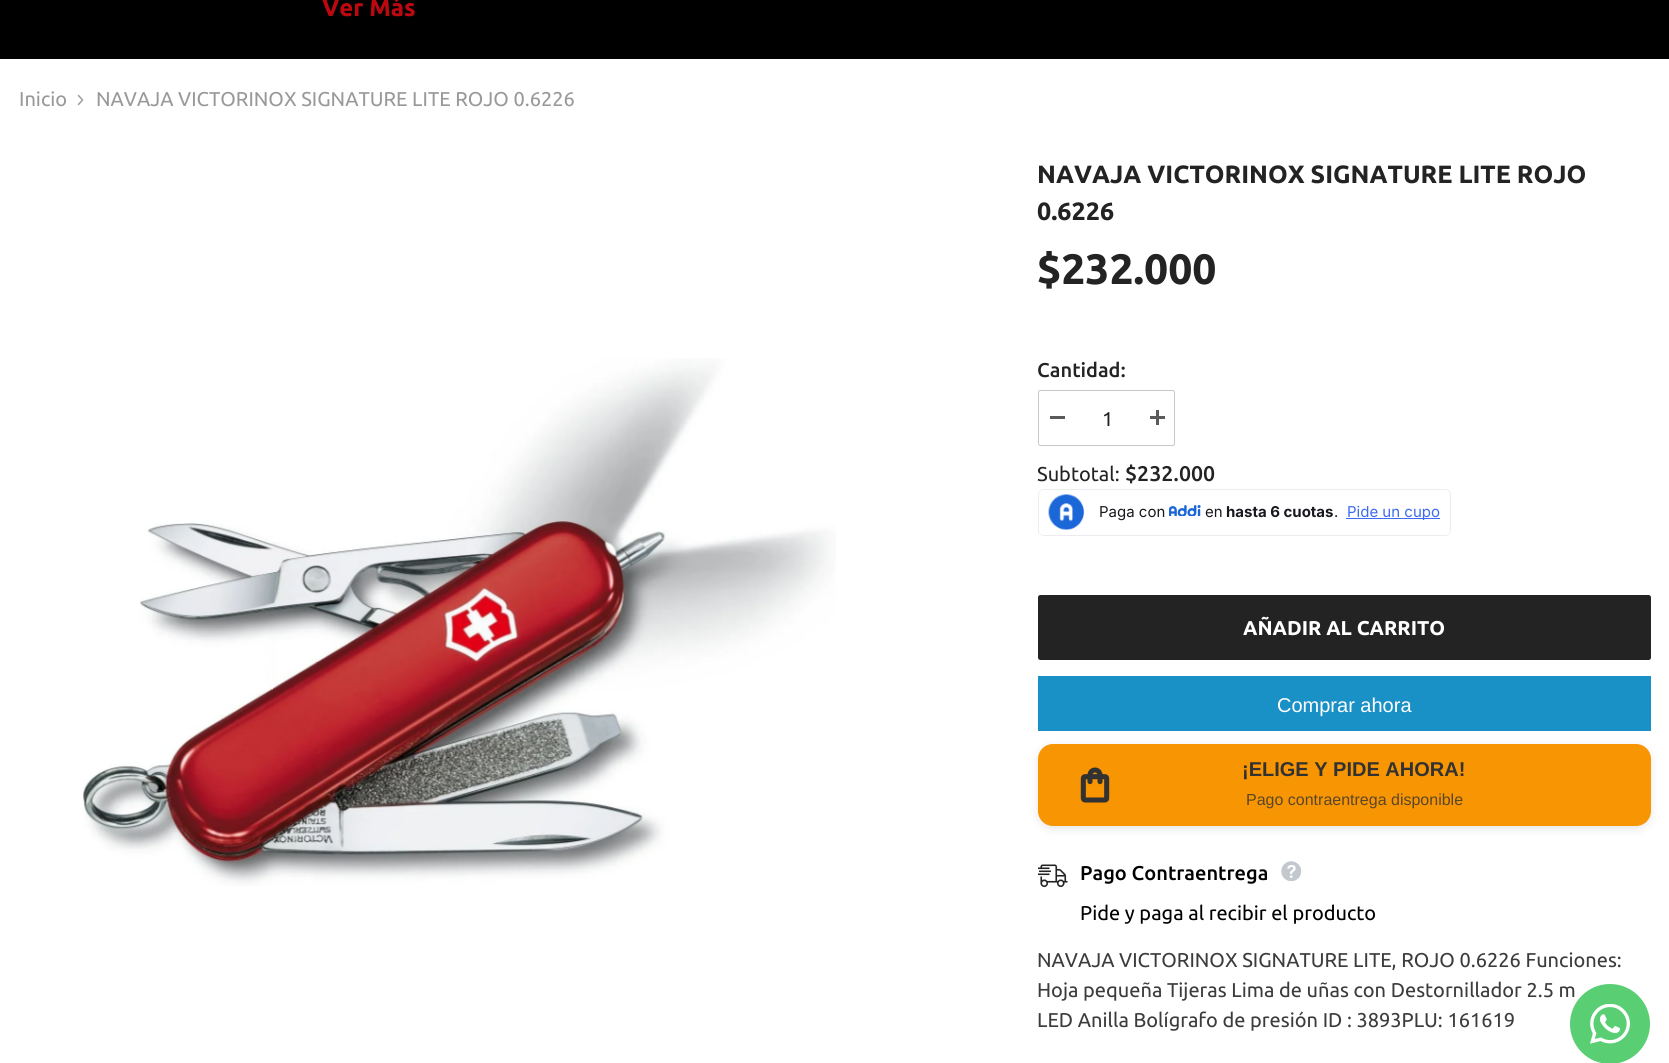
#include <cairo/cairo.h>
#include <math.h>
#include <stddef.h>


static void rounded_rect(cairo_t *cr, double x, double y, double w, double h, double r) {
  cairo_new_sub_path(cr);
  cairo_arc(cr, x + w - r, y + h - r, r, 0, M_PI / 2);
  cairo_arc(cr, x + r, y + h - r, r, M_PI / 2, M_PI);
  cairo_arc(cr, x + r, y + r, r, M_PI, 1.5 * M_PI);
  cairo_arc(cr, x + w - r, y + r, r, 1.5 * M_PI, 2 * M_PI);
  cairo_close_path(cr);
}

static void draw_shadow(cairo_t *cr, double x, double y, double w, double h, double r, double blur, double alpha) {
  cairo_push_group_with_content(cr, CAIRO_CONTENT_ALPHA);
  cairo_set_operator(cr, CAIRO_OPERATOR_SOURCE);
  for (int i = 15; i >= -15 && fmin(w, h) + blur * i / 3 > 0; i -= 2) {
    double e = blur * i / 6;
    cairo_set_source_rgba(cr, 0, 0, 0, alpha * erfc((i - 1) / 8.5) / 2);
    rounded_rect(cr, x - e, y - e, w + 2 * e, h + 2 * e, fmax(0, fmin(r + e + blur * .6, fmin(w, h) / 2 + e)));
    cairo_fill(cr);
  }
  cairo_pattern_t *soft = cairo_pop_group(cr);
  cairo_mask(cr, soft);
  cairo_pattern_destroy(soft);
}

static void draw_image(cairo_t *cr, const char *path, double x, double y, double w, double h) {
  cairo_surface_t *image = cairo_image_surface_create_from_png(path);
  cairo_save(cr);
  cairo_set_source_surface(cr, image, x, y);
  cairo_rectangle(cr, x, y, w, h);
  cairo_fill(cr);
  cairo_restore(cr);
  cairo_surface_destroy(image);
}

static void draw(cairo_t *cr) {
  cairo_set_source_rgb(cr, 1, 1, 1);
  cairo_paint(cr);
  cairo_set_source_rgb(cr, 0, 0, 0);
  cairo_rectangle(cr, 0, 0, 1669, 59);
  cairo_fill(cr);
  draw_image(cr, "images/1.png", 77, 94, 7, 12);
  draw_image(cr, "images/2.png", 82, 358, 754, 528);
  rounded_rect(cr, 1038.5, 390.5, 136, 55, 2);
  cairo_set_source_rgb(cr, 199 / 255.0, 199 / 255.0, 199 / 255.0);
  cairo_set_line_width(cr, 1);
  cairo_stroke(cr);
  cairo_set_source_rgb(cr, 90 / 255.0, 90 / 255.0, 90 / 255.0);
  cairo_rectangle(cr, 1050, 416, 15, 3);
  cairo_fill(cr);
  cairo_rectangle(cr, 1150, 416, 15, 3);
  cairo_fill(cr);
  cairo_rectangle(cr, 1156, 410, 3, 15);
  cairo_fill(cr);
  rounded_rect(cr, 1038.5, 489.5, 412, 46, 5.5);
  cairo_set_source_rgb(cr, 235 / 255.0, 236 / 255.0, 237 / 255.0);
  cairo_stroke(cr);
  cairo_set_source_rgb(cr, 1, 1, 1);
  cairo_new_path(cr);
  cairo_move_to(cr, 1044, 490);
  cairo_line_to(cr, 1094, 490);
  cairo_line_to(cr, 1094, 535);
  cairo_line_to(cr, 1044, 535);
  cairo_curve_to(cr, 1041, 535, 1039, 533, 1039, 530);
  cairo_line_to(cr, 1039, 495);
  cairo_curve_to(cr, 1039, 492, 1041, 490, 1044, 490);
  cairo_close_path(cr);
  cairo_fill(cr);
  draw_image(cr, "images/3.png", 1048, 494, 36, 36);
  cairo_new_path(cr);
  cairo_move_to(cr, 1094, 490);
  cairo_line_to(cr, 1445, 490);
  cairo_curve_to(cr, 1448, 490, 1450, 492, 1450, 495);
  cairo_line_to(cr, 1450, 530);
  cairo_curve_to(cr, 1450, 533, 1448, 535, 1445, 535);
  cairo_line_to(cr, 1094, 535);
  cairo_close_path(cr);
  cairo_fill(cr);
  draw_image(cr, "images/4.png", 1169, 505, 32, 11);
  cairo_set_source_rgb(cr, 60 / 255.0, 106 / 255.0, 240 / 255.0);
  cairo_rectangle(cr, 1346, 518, 94, 1);
  cairo_fill(cr);
  cairo_set_source_rgb(cr, 35 / 255.0, 35 / 255.0, 35 / 255.0);
  rounded_rect(cr, 1038.5, 595.5, 612, 64, 2);
  cairo_fill_preserve(cr);
  cairo_stroke(cr);
  cairo_set_source_rgb(cr, 25 / 255.0, 144 / 255.0, 198 / 255.0);
  cairo_rectangle(cr, 1038, 676, 613, 55);
  cairo_fill(cr);
  cairo_set_source_rgb(cr, 0, 0, 0);
  draw_shadow(cr, 1038, 746, 613, 83, 15, 4.5, 0.1);
  cairo_set_source_rgb(cr, 248 / 255.0, 149 / 255.0, 3 / 255.0);
  rounded_rect(cr, 1038, 744, 613, 82, 15);
  cairo_fill(cr);
  draw_image(cr, "images/5.png", 1080, 767, 30, 36);
  draw_image(cr, "images/6.png", 1038, 864, 30, 24);
  draw_image(cr, "images/7.png", 1281, 861, 20, 20);
  cairo_select_font_face(cr, "Ubuntu", CAIRO_FONT_SLANT_NORMAL, CAIRO_FONT_WEIGHT_BOLD);
  cairo_set_font_size(cr, 24);
  cairo_set_source_rgb(cr, 190 / 255.0, 8 / 255.0, 16 / 255.0);
  cairo_move_to(cr, 322, 16);
  cairo_show_text(cr, "Ver Más");
  cairo_select_font_face(cr, "Ubuntu", CAIRO_FONT_SLANT_NORMAL, CAIRO_FONT_WEIGHT_NORMAL);
  cairo_set_font_size(cr, 20);
  cairo_set_source_rgb(cr, 153 / 255.0, 153 / 255.0, 153 / 255.0);
  cairo_move_to(cr, 19, 106);
  cairo_show_text(cr, "Inicio");
  cairo_move_to(cr, 96, 106);
  cairo_show_text(cr, "NAVAJA VICTORINOX SIGNATURE LITE ROJO 0.6226");
  cairo_select_font_face(cr, "Ubuntu", CAIRO_FONT_SLANT_NORMAL, CAIRO_FONT_WEIGHT_BOLD);
  cairo_set_font_size(cr, 25);
  cairo_set_source_rgb(cr, 35 / 255.0, 35 / 255.0, 35 / 255.0);
  cairo_move_to(cr, 1037, 183);
  cairo_show_text(cr, "NAVAJA VICTORINOX SIGNATURE LITE ROJO");
  cairo_move_to(cr, 1037, 220);
  cairo_show_text(cr, "0.6226");
  cairo_set_font_size(cr, 42.5);
  cairo_move_to(cr, 1037, 284);
  cairo_show_text(cr, "$232.000");
  cairo_select_font_face(cr, "Ubuntu Medium", CAIRO_FONT_SLANT_NORMAL, CAIRO_FONT_WEIGHT_NORMAL);
  cairo_set_font_size(cr, 20);
  cairo_move_to(cr, 1037, 377);
  cairo_show_text(cr, "Cantidad:");
  cairo_select_font_face(cr, "Ubuntu", CAIRO_FONT_SLANT_NORMAL, CAIRO_FONT_WEIGHT_NORMAL);
  cairo_move_to(cr, 1102, 426);
  cairo_show_text(cr, "1");
  cairo_move_to(cr, 1037, 481);
  cairo_show_text(cr, "Subtotal:");
  cairo_select_font_face(cr, "Ubuntu Medium", CAIRO_FONT_SLANT_NORMAL, CAIRO_FONT_WEIGHT_NORMAL);
  cairo_set_font_size(cr, 21.25);
  cairo_move_to(cr, 1125, 481);
  cairo_show_text(cr, "$232.000");
  cairo_select_font_face(cr, "Inter", CAIRO_FONT_SLANT_NORMAL, CAIRO_FONT_WEIGHT_NORMAL);
  cairo_set_font_size(cr, 15);
  cairo_set_source_rgb(cr, 24 / 255.0, 24 / 255.0, 31 / 255.0);
  cairo_move_to(cr, 1099, 517);
  cairo_show_text(cr, "Paga con");
  cairo_move_to(cr, 1205, 517);
  cairo_show_text(cr, "en");
  cairo_select_font_face(cr, "Inter", CAIRO_FONT_SLANT_NORMAL, CAIRO_FONT_WEIGHT_BOLD);
  cairo_move_to(cr, 1226, 517);
  cairo_show_text(cr, "hasta 6 cuotas");
  cairo_select_font_face(cr, "Inter", CAIRO_FONT_SLANT_NORMAL, CAIRO_FONT_WEIGHT_NORMAL);
  cairo_move_to(cr, 1334, 517);
  cairo_show_text(cr, ".");
  cairo_set_source_rgb(cr, 60 / 255.0, 106 / 255.0, 240 / 255.0);
  cairo_move_to(cr, 1347, 517);
  cairo_show_text(cr, "Pide un cupo");
  cairo_select_font_face(cr, "Ubuntu", CAIRO_FONT_SLANT_NORMAL, CAIRO_FONT_WEIGHT_BOLD);
  cairo_set_font_size(cr, 20);
  cairo_set_source_rgb(cr, 1, 1, 1);
  cairo_move_to(cr, 1243, 635);
  cairo_show_text(cr, "AÑADIR AL CARRITO");
  cairo_select_font_face(cr, "Liberation Sans", CAIRO_FONT_SLANT_NORMAL, CAIRO_FONT_WEIGHT_NORMAL);
  cairo_move_to(cr, 1277, 712);
  cairo_show_text(cr, "Comprar ahora");
  cairo_select_font_face(cr, "Liberation Sans", CAIRO_FONT_SLANT_NORMAL, CAIRO_FONT_WEIGHT_BOLD);
  cairo_set_source_rgb(cr, 50 / 255.0, 50 / 255.0, 50 / 255.0);
  cairo_move_to(cr, 1242, 776);
  cairo_show_text(cr, "¡ELIGE Y PIDE AHORA!");
  cairo_select_font_face(cr, "Liberation Sans", CAIRO_FONT_SLANT_NORMAL, CAIRO_FONT_WEIGHT_NORMAL);
  cairo_set_font_size(cr, 16);
  cairo_set_source_rgb(cr, 90 / 255.0, 70 / 255.0, 41 / 255.0);
  cairo_move_to(cr, 1246, 805);
  cairo_show_text(cr, "Pago contraentrega disponible");
  cairo_select_font_face(cr, "Ubuntu Medium", CAIRO_FONT_SLANT_NORMAL, CAIRO_FONT_WEIGHT_NORMAL);
  cairo_set_font_size(cr, 20);
  cairo_set_source_rgb(cr, 0, 0, 0);
  cairo_move_to(cr, 1080, 880);
  cairo_show_text(cr, "Pago Contraentrega");
  cairo_select_font_face(cr, "Ubuntu", CAIRO_FONT_SLANT_NORMAL, CAIRO_FONT_WEIGHT_NORMAL);
  cairo_move_to(cr, 1080, 920);
  cairo_show_text(cr, "Pide y paga al recibir el producto");
  cairo_set_source_rgb(cr, 60 / 255.0, 60 / 255.0, 60 / 255.0);
  cairo_move_to(cr, 1037, 967);
  cairo_show_text(cr, "NAVAJA VICTORINOX SIGNATURE LITE, ROJO 0.6226 Funciones:");
  cairo_move_to(cr, 1037, 997);
  cairo_show_text(cr, "Hoja pequeña Tijeras Lima de uñas con Destornillador 2.5 m");
  cairo_move_to(cr, 1037, 1027);
  cairo_show_text(cr, "LED Anilla Bolígrafo de presión ID : 3893PLU: 161619");
  cairo_set_source_rgb(cr, 89 / 255.0, 206 / 255.0, 114 / 255.0);
  cairo_new_path(cr);
  cairo_arc(cr, 1610, 1024, 40, 0, 2 * M_PI);
  cairo_fill(cr);
  draw_image(cr, "images/8.png", 1590, 1004, 40, 40);
}

int main(void) {
  cairo_surface_t *surface = cairo_image_surface_create(CAIRO_FORMAT_RGB24, 1669, 1063);
  cairo_t *cr = cairo_create(surface);
  cairo_font_options_t *options = cairo_font_options_create();
  cairo_font_options_set_hint_metrics(options, CAIRO_HINT_METRICS_OFF);
  cairo_font_options_set_hint_style(options, CAIRO_HINT_STYLE_NONE);
  cairo_set_font_options(cr, options);
  cairo_set_miter_limit(cr, 4);
  draw(cr);
  cairo_surface_write_to_png(surface, "out.png");
  cairo_font_options_destroy(options);
  cairo_destroy(cr);
  cairo_surface_destroy(surface);
  return 0;
}
